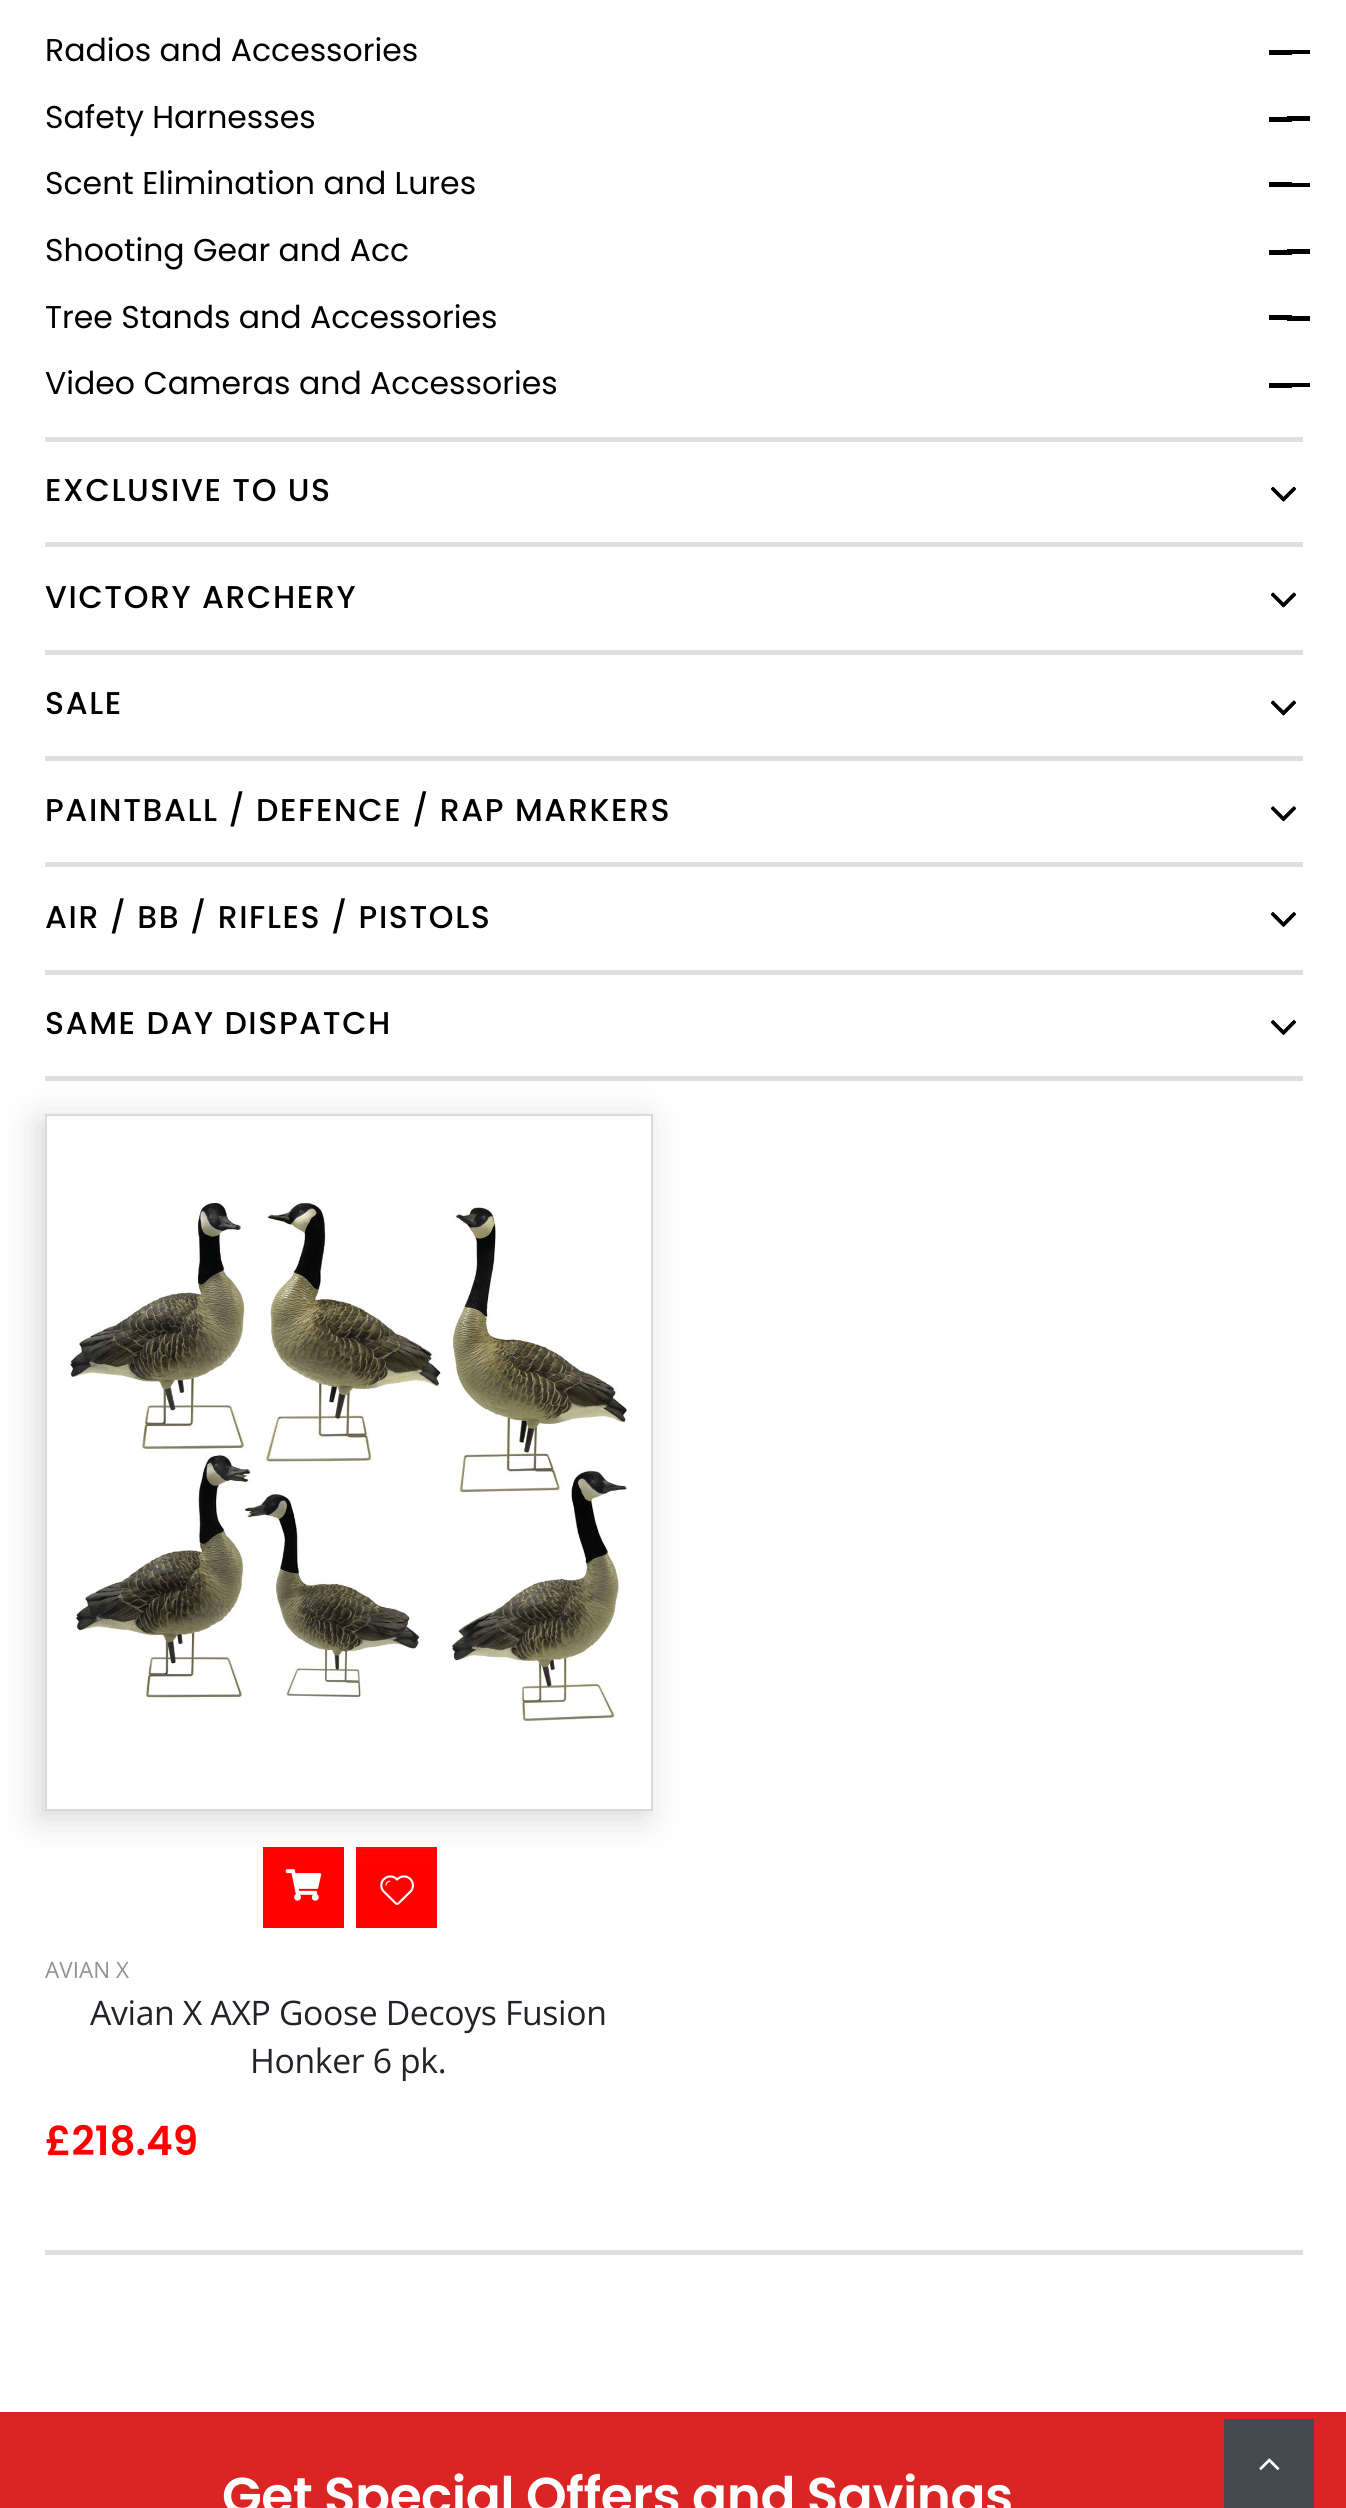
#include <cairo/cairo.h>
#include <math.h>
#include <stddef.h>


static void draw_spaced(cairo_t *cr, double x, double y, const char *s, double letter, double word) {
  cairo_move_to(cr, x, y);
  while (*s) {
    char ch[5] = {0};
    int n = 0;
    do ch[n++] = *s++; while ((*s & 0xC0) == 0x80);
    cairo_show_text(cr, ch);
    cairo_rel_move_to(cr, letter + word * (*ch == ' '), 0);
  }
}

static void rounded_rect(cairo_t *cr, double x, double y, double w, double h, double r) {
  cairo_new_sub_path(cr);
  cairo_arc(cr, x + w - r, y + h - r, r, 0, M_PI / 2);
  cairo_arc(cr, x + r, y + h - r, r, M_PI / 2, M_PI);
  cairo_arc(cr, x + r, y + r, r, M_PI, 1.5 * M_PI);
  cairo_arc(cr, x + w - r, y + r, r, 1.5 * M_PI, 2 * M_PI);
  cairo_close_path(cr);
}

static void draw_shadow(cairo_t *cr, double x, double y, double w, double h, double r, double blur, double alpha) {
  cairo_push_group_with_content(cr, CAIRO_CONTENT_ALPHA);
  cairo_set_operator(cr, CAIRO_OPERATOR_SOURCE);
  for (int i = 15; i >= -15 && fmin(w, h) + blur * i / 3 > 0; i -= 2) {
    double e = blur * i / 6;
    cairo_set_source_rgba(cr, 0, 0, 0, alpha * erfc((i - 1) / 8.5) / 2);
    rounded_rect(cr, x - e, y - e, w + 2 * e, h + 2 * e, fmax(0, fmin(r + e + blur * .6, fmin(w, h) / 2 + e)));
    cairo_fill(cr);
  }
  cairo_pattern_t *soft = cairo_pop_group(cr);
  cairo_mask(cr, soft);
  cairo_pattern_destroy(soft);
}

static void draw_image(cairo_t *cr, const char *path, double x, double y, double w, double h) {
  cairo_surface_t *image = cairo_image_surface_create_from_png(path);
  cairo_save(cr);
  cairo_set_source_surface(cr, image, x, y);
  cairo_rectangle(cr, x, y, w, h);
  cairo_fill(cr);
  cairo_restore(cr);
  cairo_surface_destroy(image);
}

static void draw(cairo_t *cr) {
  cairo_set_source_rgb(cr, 1, 1, 1);
  cairo_paint(cr);
  cairo_set_source_rgb(cr, 223 / 255.0, 223 / 255.0, 223 / 255.0);
  cairo_rectangle(cr, 45, 437, 1258, 5);
  cairo_fill(cr);
  cairo_set_source_rgb(cr, 0, 0, 0);
  cairo_rectangle(cr, 1269, 50, 23, 5);
  cairo_fill(cr);
  cairo_rectangle(cr, 1287, 50, 23, 4);
  cairo_fill(cr);
  cairo_rectangle(cr, 1269, 117, 23, 5);
  cairo_fill(cr);
  cairo_rectangle(cr, 1287, 116, 23, 5);
  cairo_fill(cr);
  cairo_rectangle(cr, 1269, 182, 23, 5);
  cairo_fill(cr);
  cairo_rectangle(cr, 1287, 183, 23, 4);
  cairo_fill(cr);
  cairo_rectangle(cr, 1269, 250, 23, 5);
  cairo_fill(cr);
  cairo_rectangle(cr, 1287, 249, 23, 5);
  cairo_fill(cr);
  cairo_rectangle(cr, 1269, 315, 23, 5);
  cairo_fill(cr);
  cairo_rectangle(cr, 1287, 316, 23, 5);
  cairo_fill(cr);
  cairo_rectangle(cr, 1269, 383, 23, 5);
  cairo_fill(cr);
  cairo_rectangle(cr, 1287, 383, 23, 4);
  cairo_fill(cr);
  cairo_set_source_rgb(cr, 223 / 255.0, 223 / 255.0, 223 / 255.0);
  cairo_rectangle(cr, 45, 542, 1258, 5);
  cairo_fill(cr);
  draw_image(cr, "images/1.png", 1271, 486, 25, 16);
  draw_image(cr, "images/2.png", 1271, 486, 25, 16);
  cairo_rectangle(cr, 45, 650, 1258, 5);
  cairo_fill(cr);
  draw_image(cr, "images/3.png", 1271, 592, 25, 16);
  draw_image(cr, "images/4.png", 1271, 592, 25, 16);
  cairo_rectangle(cr, 45, 756, 1258, 5);
  cairo_fill(cr);
  draw_image(cr, "images/3.png", 1271, 700, 25, 16);
  draw_image(cr, "images/4.png", 1271, 700, 25, 16);
  cairo_rectangle(cr, 45, 862, 1258, 5);
  cairo_fill(cr);
  draw_image(cr, "images/5.png", 1271, 806, 25, 15);
  draw_image(cr, "images/6.png", 1271, 806, 25, 15);
  cairo_rectangle(cr, 45, 970, 1258, 5);
  cairo_fill(cr);
  draw_image(cr, "images/7.png", 1271, 912, 25, 15);
  draw_image(cr, "images/8.png", 1271, 912, 25, 15);
  cairo_rectangle(cr, 45, 1076, 1258, 5);
  cairo_fill(cr);
  draw_image(cr, "images/7.png", 1271, 1020, 25, 15);
  draw_image(cr, "images/8.png", 1271, 1020, 25, 15);
  cairo_set_source_rgb(cr, 1, 1 / 255.0, 0);
  cairo_rectangle(cr, 356, 1847, 81, 81);
  cairo_fill(cr);
  cairo_save(cr);
  cairo_set_fill_rule(cr, CAIRO_FILL_RULE_EVEN_ODD);
  cairo_new_path(cr);
  cairo_move_to(cr, 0, 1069);
  cairo_line_to(cr, 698, 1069);
  cairo_line_to(cr, 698, 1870);
  cairo_line_to(cr, 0, 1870);
  cairo_close_path(cr);
  cairo_move_to(cr, 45, 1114);
  cairo_line_to(cr, 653, 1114);
  cairo_line_to(cr, 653, 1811);
  cairo_line_to(cr, 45, 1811);
  cairo_close_path(cr);
  cairo_clip(cr);
  cairo_set_source_rgb(cr, 216 / 255.0, 216 / 255.0, 216 / 255.0);
  draw_shadow(cr, 38, 1121, 608, 697, 0, 17, 1);
  cairo_restore(cr);
  cairo_rectangle(cr, 46, 1115, 606, 695);
  cairo_set_source_rgb(cr, 218 / 255.0, 218 / 255.0, 218 / 255.0);
  cairo_stroke(cr);
  draw_image(cr, "images/9.png", 70, 1202, 557, 520);
  cairo_set_source_rgb(cr, 1, 1 / 255.0, 0);
  cairo_rectangle(cr, 263, 1847, 81, 81);
  cairo_fill(cr);
  draw_image(cr, "images/10.png", 285, 1869, 37, 32);
  draw_image(cr, "images/11.png", 380, 1875, 34, 30);
  cairo_set_source_rgb(cr, 223 / 255.0, 223 / 255.0, 223 / 255.0);
  cairo_rectangle(cr, 45, 2250, 1258, 5);
  cairo_fill(cr);
  cairo_set_source_rgb(cr, 219 / 255.0, 36 / 255.0, 36 / 255.0);
  cairo_rectangle(cr, 0, 2412, 1346, 96);
  cairo_fill(cr);
  cairo_set_source_rgb(cr, 67 / 255.0, 73 / 255.0, 78 / 255.0);
  cairo_rectangle(cr, 1224, 2419, 90, 89);
  cairo_fill(cr);
  draw_image(cr, "images/12.png", 1259, 2458, 21, 12);
  cairo_select_font_face(cr, "Poppins", CAIRO_FONT_SLANT_NORMAL, CAIRO_FONT_WEIGHT_NORMAL);
  cairo_set_font_size(cr, 31.5);
  cairo_set_source_rgb(cr, 0, 0, 0);
  cairo_move_to(cr, 45, 61);
  cairo_show_text(cr, "Radios and Accessories");
  cairo_move_to(cr, 45, 128);
  cairo_show_text(cr, "Safety Harnesses");
  cairo_move_to(cr, 45, 194);
  cairo_show_text(cr, "Scent Elimination and Lures");
  cairo_move_to(cr, 45, 261);
  cairo_show_text(cr, "Shooting Gear and Acc");
  cairo_move_to(cr, 45, 328);
  cairo_show_text(cr, "Tree Stands and Accessories");
  cairo_move_to(cr, 45, 394);
  cairo_show_text(cr, "Video Cameras and Accessories");
  cairo_select_font_face(cr, "Poppins Medium", CAIRO_FONT_SLANT_NORMAL, CAIRO_FONT_WEIGHT_NORMAL);
  draw_spaced(cr, 45, 501, "EXCLUSIVE TO US", 1.6, 0);
  draw_spaced(cr, 45, 608, "VICTORY ARCHERY", 1.6, 0);
  draw_spaced(cr, 45, 714, "SALE", 1.6, 0);
  draw_spaced(cr, 45, 821, "PAINTBALL / DEFENCE / RAP MARKERS", 1.6, 0);
  draw_spaced(cr, 45, 928, "AIR / BB / RIFLES / PISTOLS", 1.6, 0);
  draw_spaced(cr, 45, 1034, "SAME DAY DISPATCH", 1.6, 0);
  cairo_select_font_face(cr, "Open Sans", CAIRO_FONT_SLANT_NORMAL, CAIRO_FONT_WEIGHT_NORMAL);
  cairo_set_font_size(cr, 22.5);
  cairo_set_source_rgb(cr, 146 / 255.0, 146 / 255.0, 146 / 255.0);
  cairo_move_to(cr, 45, 1978);
  cairo_show_text(cr, "AVIAN X");
  cairo_set_font_size(cr, 33.75);
  cairo_set_source_rgb(cr, 34 / 255.0, 35 / 255.0, 41 / 255.0);
  draw_spaced(cr, 90, 2025, "Avian X AXP Goose Decoys Fusion", -0.35, 0);
  draw_spaced(cr, 250, 2073, "Honker 6 pk.", -0.35, 0);
  cairo_select_font_face(cr, "Poppins SemiBold", CAIRO_FONT_SLANT_NORMAL, CAIRO_FONT_WEIGHT_NORMAL);
  cairo_set_font_size(cr, 40.5);
  cairo_set_source_rgb(cr, 1, 1 / 255.0, 0);
  cairo_move_to(cr, 45, 2155);
  cairo_show_text(cr, "£218.49");
  cairo_set_font_size(cr, 51.75);
  cairo_set_source_rgb(cr, 1, 1, 1);
  draw_spaced(cr, 222, 2514, "Get Special Offers and Savings", -0.5, 0);
}

int main(void) {
  cairo_surface_t *surface = cairo_image_surface_create(CAIRO_FORMAT_RGB24, 1346, 2508);
  cairo_t *cr = cairo_create(surface);
  cairo_font_options_t *options = cairo_font_options_create();
  cairo_font_options_set_hint_metrics(options, CAIRO_HINT_METRICS_OFF);
  cairo_font_options_set_hint_style(options, CAIRO_HINT_STYLE_NONE);
  cairo_set_font_options(cr, options);
  cairo_set_miter_limit(cr, 4);
  draw(cr);
  cairo_surface_write_to_png(surface, "out.png");
  cairo_font_options_destroy(options);
  cairo_destroy(cr);
  cairo_surface_destroy(surface);
  return 0;
}
